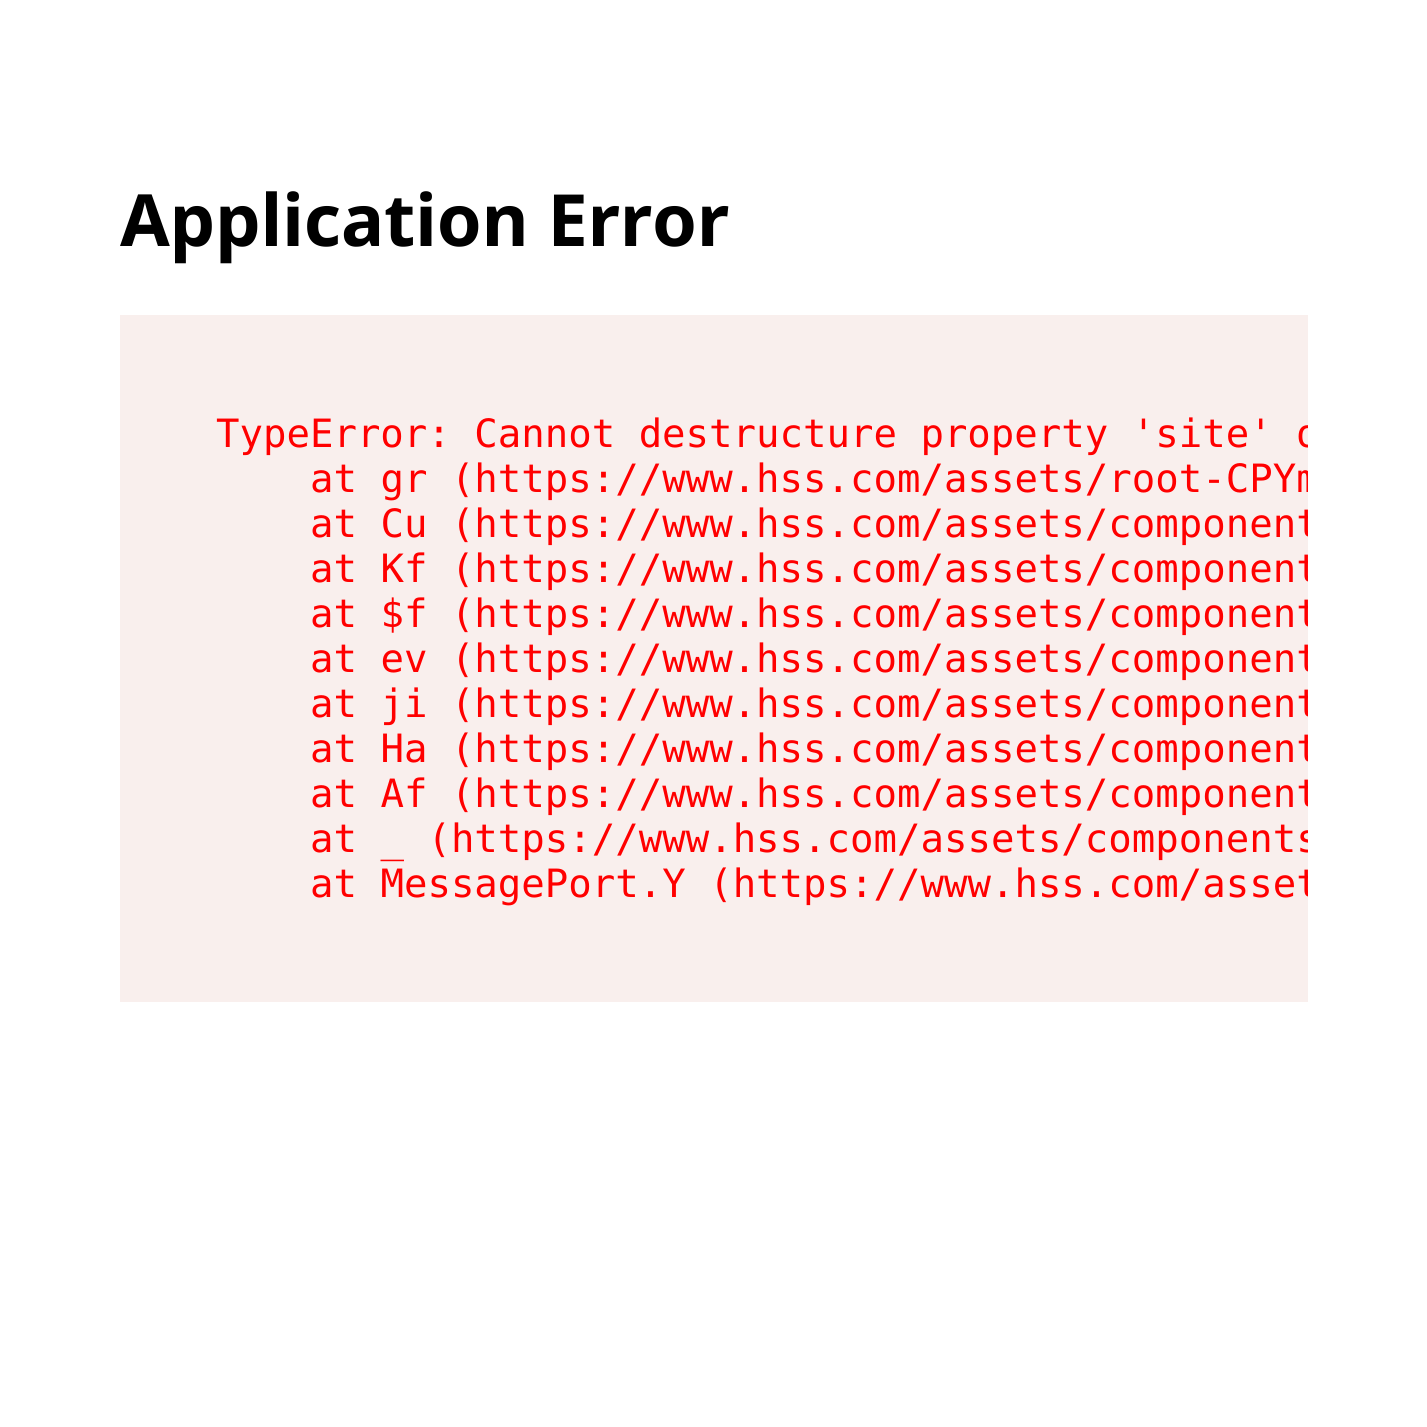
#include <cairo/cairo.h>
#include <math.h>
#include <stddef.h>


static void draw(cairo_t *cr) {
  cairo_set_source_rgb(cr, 1, 1, 1);
  cairo_paint(cr);
  cairo_set_source_rgb(cr, 249 / 255.0, 239 / 255.0, 237 / 255.0);
  cairo_rectangle(cr, 120, 315, 1188, 687);
  cairo_fill(cr);
  cairo_select_font_face(cr, "Noto Sans", CAIRO_FONT_SLANT_NORMAL, CAIRO_FONT_WEIGHT_BOLD);
  cairo_set_font_size(cr, 72);
  cairo_set_source_rgb(cr, 0, 0, 0);
  cairo_move_to(cr, 120, 246);
  cairo_show_text(cr, "Application Error");
  cairo_save(cr);
  cairo_rectangle(cr, 120, 315, 1188, 687);
  cairo_clip(cr);
  cairo_select_font_face(cr, "DejaVu Sans Mono", CAIRO_FONT_SLANT_NORMAL, CAIRO_FONT_WEIGHT_NORMAL);
  cairo_set_font_size(cr, 39);
  cairo_set_source_rgb(cr, 1, 0, 0);
  cairo_move_to(cr, 216, 447);
  cairo_show_text(cr, "TypeError: Cannot destructure property 'site' o");
  cairo_move_to(cr, 310, 492);
  cairo_show_text(cr, "at gr (https://www.hss.com/assets/root-CPYm");
  cairo_move_to(cr, 310, 537);
  cairo_show_text(cr, "at Cu (https://www.hss.com/assets/component");
  cairo_move_to(cr, 310, 582);
  cairo_show_text(cr, "at Kf (https://www.hss.com/assets/component");
  cairo_move_to(cr, 310, 627);
  cairo_show_text(cr, "at $f (https://www.hss.com/assets/component");
  cairo_move_to(cr, 310, 672);
  cairo_show_text(cr, "at ev (https://www.hss.com/assets/component");
  cairo_move_to(cr, 310, 717);
  cairo_show_text(cr, "at ji (https://www.hss.com/assets/component");
  cairo_move_to(cr, 310, 762);
  cairo_show_text(cr, "at Ha (https://www.hss.com/assets/component");
  cairo_move_to(cr, 310, 807);
  cairo_show_text(cr, "at Af (https://www.hss.com/assets/component");
  cairo_move_to(cr, 310, 852);
  cairo_show_text(cr, "at _ (https://www.hss.com/assets/components");
  cairo_move_to(cr, 310, 897);
  cairo_show_text(cr, "at MessagePort.Y (https://www.hss.com/asset");
  cairo_restore(cr);
}

int main(void) {
  cairo_surface_t *surface = cairo_image_surface_create(CAIRO_FORMAT_RGB24, 1427, 1427);
  cairo_t *cr = cairo_create(surface);
  cairo_font_options_t *options = cairo_font_options_create();
  cairo_font_options_set_hint_metrics(options, CAIRO_HINT_METRICS_OFF);
  cairo_font_options_set_hint_style(options, CAIRO_HINT_STYLE_NONE);
  cairo_set_font_options(cr, options);
  cairo_set_miter_limit(cr, 4);
  draw(cr);
  cairo_surface_write_to_png(surface, "out.png");
  cairo_font_options_destroy(options);
  cairo_destroy(cr);
  cairo_surface_destroy(surface);
  return 0;
}
